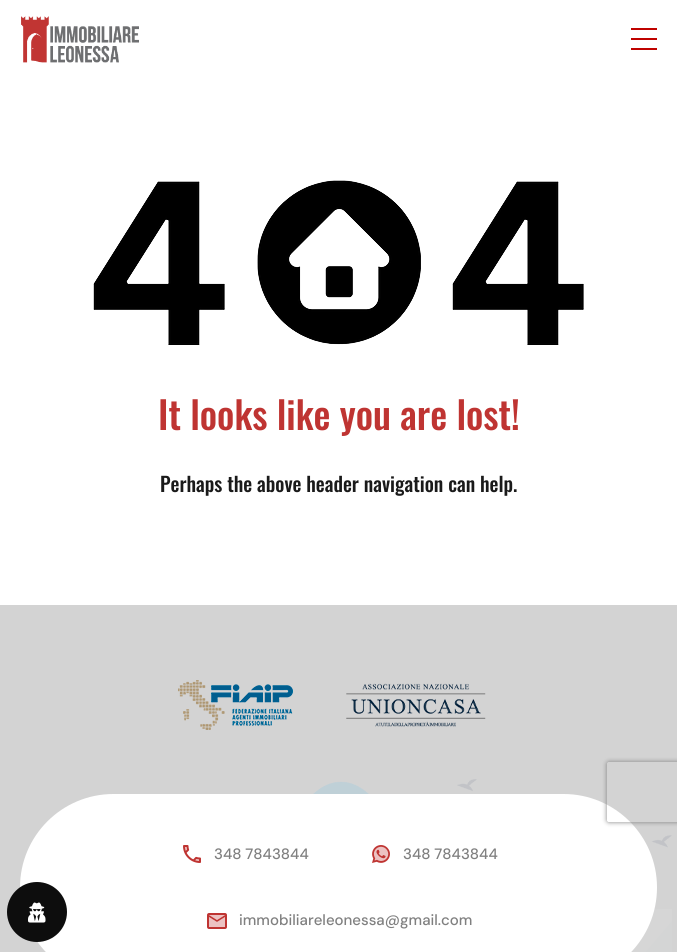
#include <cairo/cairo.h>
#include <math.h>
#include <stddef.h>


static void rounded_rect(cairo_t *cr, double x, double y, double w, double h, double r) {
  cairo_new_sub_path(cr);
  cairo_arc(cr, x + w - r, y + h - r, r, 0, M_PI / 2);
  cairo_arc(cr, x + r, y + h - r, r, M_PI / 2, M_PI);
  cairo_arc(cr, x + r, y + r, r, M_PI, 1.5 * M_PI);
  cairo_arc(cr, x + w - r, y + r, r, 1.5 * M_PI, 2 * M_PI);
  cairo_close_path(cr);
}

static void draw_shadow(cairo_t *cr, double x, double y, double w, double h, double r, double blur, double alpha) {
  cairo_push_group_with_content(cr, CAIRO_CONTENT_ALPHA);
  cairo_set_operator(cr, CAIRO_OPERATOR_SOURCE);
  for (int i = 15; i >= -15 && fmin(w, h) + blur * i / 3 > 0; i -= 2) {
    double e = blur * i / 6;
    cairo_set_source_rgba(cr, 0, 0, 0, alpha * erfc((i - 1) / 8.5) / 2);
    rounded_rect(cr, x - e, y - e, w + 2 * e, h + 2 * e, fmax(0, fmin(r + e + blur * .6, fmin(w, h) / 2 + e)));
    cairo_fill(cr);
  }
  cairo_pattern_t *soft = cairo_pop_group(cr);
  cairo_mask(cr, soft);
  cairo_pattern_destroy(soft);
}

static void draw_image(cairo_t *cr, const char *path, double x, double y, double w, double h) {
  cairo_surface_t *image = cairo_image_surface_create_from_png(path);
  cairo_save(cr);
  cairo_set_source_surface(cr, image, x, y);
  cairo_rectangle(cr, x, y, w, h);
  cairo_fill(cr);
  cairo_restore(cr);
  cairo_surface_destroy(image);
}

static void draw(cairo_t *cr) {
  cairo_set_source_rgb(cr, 1, 1, 1);
  cairo_paint(cr);
  draw_image(cr, "images/1.png", 21, 16, 118, 47);
  cairo_set_source_rgb(cr, 191 / 255.0, 3 / 255.0, 0);
  cairo_rectangle(cr, 631, 38, 26, 2);
  cairo_fill(cr);
  cairo_rectangle(cr, 631, 28, 26, 2);
  cairo_fill(cr);
  cairo_rectangle(cr, 631, 48, 26, 2);
  cairo_fill(cr);
  draw_image(cr, "images/2.png", 93, 180, 491, 165);
  cairo_set_source_rgb(cr, 211 / 255.0, 211 / 255.0, 211 / 255.0);
  cairo_rectangle(cr, 0, 605, 677, 347);
  cairo_fill(cr);
  draw_image(cr, "images/3.png", 313, 779, 359, 173);
  draw_image(cr, "images/4.png", 178, 680, 308, 50);
  cairo_set_source_rgb(cr, 1, 1, 1);
  rounded_rect(cr, 20, 794, 637, 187, 93.5);
  cairo_fill(cr);
  draw_image(cr, "images/5.png", 183, 845, 18, 18);
  draw_image(cr, "images/6.png", 372, 845, 18, 18);
  draw_image(cr, "images/7.png", 207, 913, 20, 16);
  cairo_save(cr);
  cairo_set_fill_rule(cr, CAIRO_FILL_RULE_EVEN_ODD);
  cairo_new_path(cr);
  cairo_move_to(cr, 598, 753);
  cairo_line_to(cr, 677, 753);
  cairo_line_to(cr, 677, 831);
  cairo_line_to(cr, 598, 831);
  cairo_close_path(cr);
  cairo_move_to(cr, 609, 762);
  cairo_line_to(cr, 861, 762);
  cairo_curve_to(cr, 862, 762, 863, 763, 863, 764);
  cairo_line_to(cr, 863, 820);
  cairo_curve_to(cr, 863, 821, 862, 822, 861, 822);
  cairo_line_to(cr, 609, 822);
  cairo_curve_to(cr, 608, 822, 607, 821, 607, 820);
  cairo_line_to(cr, 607, 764);
  cairo_curve_to(cr, 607, 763, 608, 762, 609, 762);
  cairo_close_path(cr);
  cairo_clip(cr);
  cairo_set_source_rgb(cr, 128 / 255.0, 128 / 255.0, 128 / 255.0);
  draw_shadow(cr, 607, 762, 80, 60, 2, 2.5, 1);
  cairo_restore(cr);
  cairo_set_source_rgb(cr, 13 / 255.0, 13 / 255.0, 13 / 255.0);
  cairo_arc(cr, 37, 912, 30, 0, 2 * M_PI);
  cairo_fill(cr);
  draw_image(cr, "images/8.png", 28, 902, 18, 21);
  cairo_select_font_face(cr, "Oswald Medium", CAIRO_FONT_SLANT_NORMAL, CAIRO_FONT_WEIGHT_NORMAL);
  cairo_set_font_size(cr, 38);
  cairo_set_source_rgb(cr, 191 / 255.0, 52 / 255.0, 50 / 255.0);
  cairo_move_to(cr, 158, 430);
  cairo_show_text(cr, "It looks like you are lost!");
  cairo_set_font_size(cr, 20);
  cairo_set_source_rgb(cr, 26 / 255.0, 26 / 255.0, 26 / 255.0);
  cairo_move_to(cr, 160, 492);
  cairo_show_text(cr, "Perhaps the above header navigation can help.");
  cairo_select_font_face(cr, "DM Sans Medium", CAIRO_FONT_SLANT_NORMAL, CAIRO_FONT_WEIGHT_NORMAL);
  cairo_set_font_size(cr, 15);
  cairo_set_source_rgb(cr, 128 / 255.0, 128 / 255.0, 128 / 255.0);
  cairo_move_to(cr, 214, 859);
  cairo_show_text(cr, "348 7843844");
  cairo_move_to(cr, 403, 859);
  cairo_show_text(cr, "348 7843844");
  cairo_move_to(cr, 239, 925);
  cairo_show_text(cr, "immobiliareleonessa@gmail.com");
}

int main(void) {
  cairo_surface_t *surface = cairo_image_surface_create(CAIRO_FORMAT_RGB24, 677, 952);
  cairo_t *cr = cairo_create(surface);
  cairo_font_options_t *options = cairo_font_options_create();
  cairo_font_options_set_hint_metrics(options, CAIRO_HINT_METRICS_OFF);
  cairo_font_options_set_hint_style(options, CAIRO_HINT_STYLE_NONE);
  cairo_set_font_options(cr, options);
  cairo_set_miter_limit(cr, 4);
  draw(cr);
  cairo_surface_write_to_png(surface, "out.png");
  cairo_font_options_destroy(options);
  cairo_destroy(cr);
  cairo_surface_destroy(surface);
  return 0;
}
